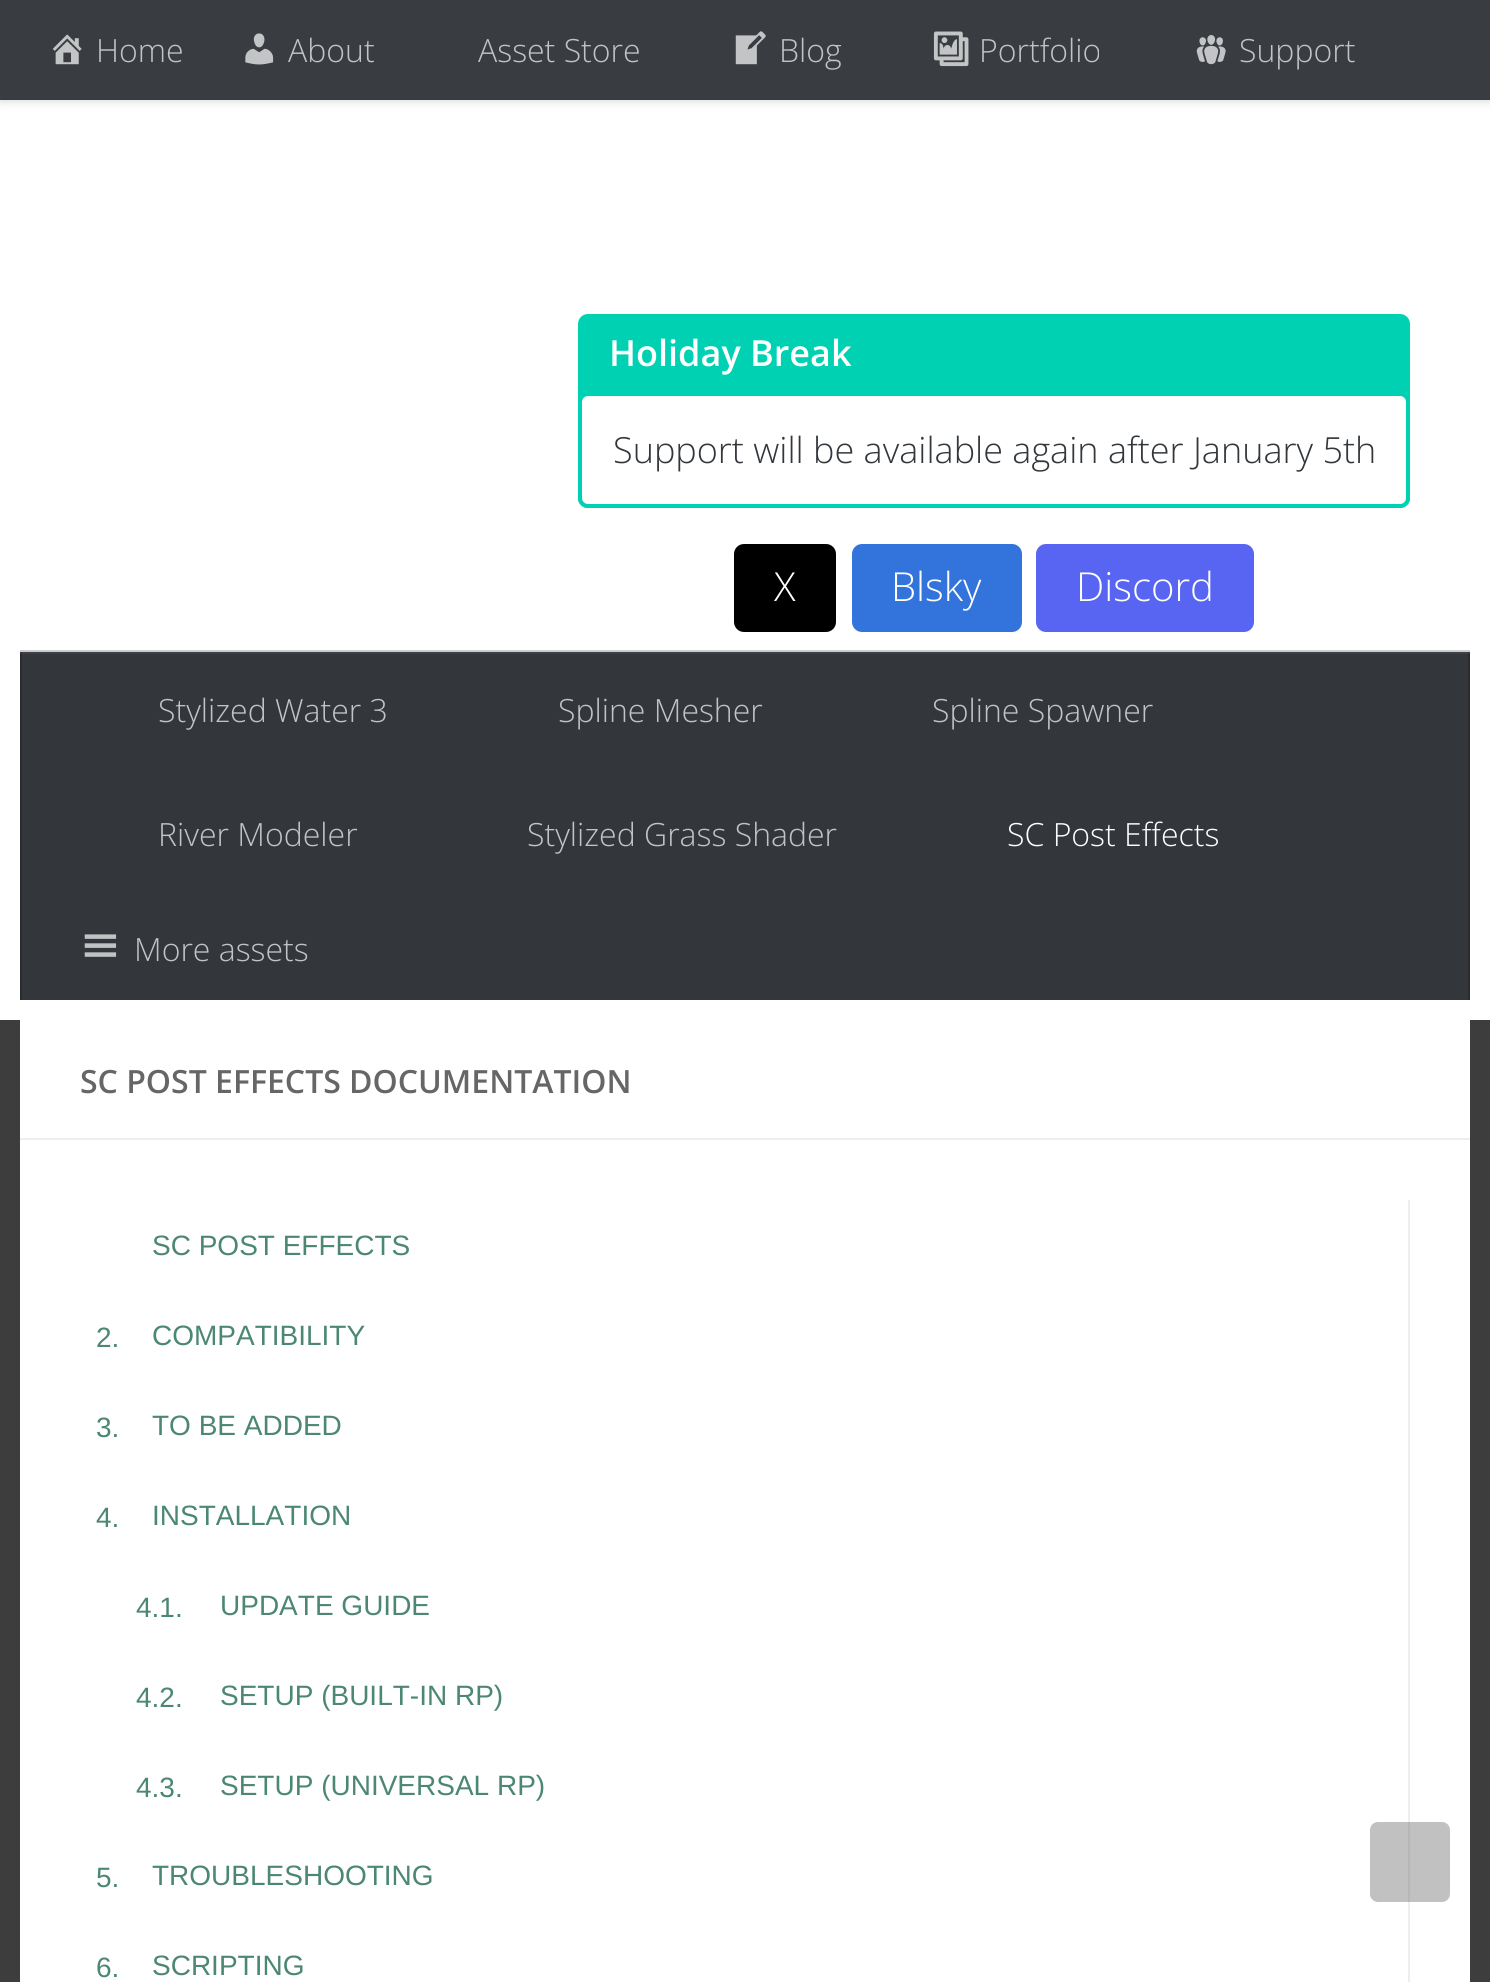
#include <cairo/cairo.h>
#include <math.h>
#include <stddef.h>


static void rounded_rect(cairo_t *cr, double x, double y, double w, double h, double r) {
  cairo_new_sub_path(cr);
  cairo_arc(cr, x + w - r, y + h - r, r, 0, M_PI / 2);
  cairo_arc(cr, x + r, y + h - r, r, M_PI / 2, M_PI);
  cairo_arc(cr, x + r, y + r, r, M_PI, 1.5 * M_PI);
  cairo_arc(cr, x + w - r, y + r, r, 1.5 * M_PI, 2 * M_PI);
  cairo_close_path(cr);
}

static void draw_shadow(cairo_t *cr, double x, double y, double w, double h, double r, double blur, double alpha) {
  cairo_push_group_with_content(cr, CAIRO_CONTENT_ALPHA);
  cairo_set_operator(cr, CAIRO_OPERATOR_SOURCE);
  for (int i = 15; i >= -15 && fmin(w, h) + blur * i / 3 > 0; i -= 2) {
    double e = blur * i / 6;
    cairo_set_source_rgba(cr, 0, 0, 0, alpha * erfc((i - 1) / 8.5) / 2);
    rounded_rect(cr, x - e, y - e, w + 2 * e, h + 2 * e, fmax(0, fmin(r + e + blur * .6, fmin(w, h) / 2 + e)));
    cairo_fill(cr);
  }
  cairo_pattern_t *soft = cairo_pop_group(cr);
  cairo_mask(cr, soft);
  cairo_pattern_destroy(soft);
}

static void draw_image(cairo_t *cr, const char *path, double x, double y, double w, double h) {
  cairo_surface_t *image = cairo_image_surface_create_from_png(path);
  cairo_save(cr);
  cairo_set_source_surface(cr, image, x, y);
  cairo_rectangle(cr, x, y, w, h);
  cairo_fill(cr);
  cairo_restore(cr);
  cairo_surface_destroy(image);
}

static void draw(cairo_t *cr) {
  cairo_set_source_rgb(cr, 61 / 255.0, 61 / 255.0, 61 / 255.0);
  cairo_paint(cr);
  cairo_set_source_rgb(cr, 1, 1, 1);
  cairo_rectangle(cr, 0, 100, 1490, 920);
  cairo_fill(cr);
  cairo_set_source_rgb(cr, 0, 0, 0);
  draw_shadow(cr, 0, 0, 1490, 100, 0, 5, 0.2);
  cairo_set_source_rgb(cr, 57 / 255.0, 61 / 255.0, 66 / 255.0);
  cairo_rectangle(cr, 0, 0, 1490, 100);
  cairo_fill(cr);
  draw_image(cr, "images/1.png", 52, 34, 30, 31);
  draw_image(cr, "images/2.png", 245, 33, 29, 32);
  draw_image(cr, "images/3.png", 735, 31, 31, 34);
  draw_image(cr, "images/4.png", 933, 31, 36, 36);
  draw_image(cr, "images/5.png", 1196, 35, 30, 30);
  cairo_set_source_rgb(cr, 0, 209 / 255.0, 178 / 255.0);
  rounded_rect(cr, 578, 314, 832, 194, 10);
  cairo_fill(cr);
  cairo_set_source_rgb(cr, 1, 1, 1);
  rounded_rect(cr, 580, 394, 828, 112, 8);
  cairo_fill_preserve(cr);
  cairo_set_source_rgb(cr, 0, 209 / 255.0, 178 / 255.0);
  cairo_set_line_width(cr, 4);
  cairo_stroke(cr);
  cairo_set_source_rgb(cr, 0, 0, 0);
  rounded_rect(cr, 734, 544, 102, 88, 10);
  cairo_fill(cr);
  cairo_set_source_rgb(cr, 51 / 255.0, 115 / 255.0, 220 / 255.0);
  rounded_rect(cr, 852, 544, 170, 88, 10);
  cairo_fill(cr);
  cairo_set_source_rgb(cr, 88 / 255.0, 101 / 255.0, 242 / 255.0);
  rounded_rect(cr, 1036, 544, 218, 88, 10);
  cairo_fill(cr);
  cairo_set_source_rgb(cr, 204 / 255.0, 204 / 255.0, 204 / 255.0);
  cairo_rectangle(cr, 20, 650, 1450, 2);
  cairo_fill(cr);
  cairo_set_source_rgb(cr, 51 / 255.0, 54 / 255.0, 59 / 255.0);
  cairo_rectangle(cr, 22, 654, 1446, 346);
  cairo_fill(cr);
  cairo_set_source_rgb(cr, 61 / 255.0, 64 / 255.0, 69 / 255.0);
  cairo_rectangle(cr, 20, 652, 1450, 2);
  cairo_fill(cr);
  cairo_set_source_rgb(cr, 41 / 255.0, 43 / 255.0, 47 / 255.0);
  cairo_rectangle(cr, 1468, 652, 2, 348);
  cairo_fill(cr);
  cairo_set_source_rgb(cr, 52 / 255.0, 54 / 255.0, 57 / 255.0);
  cairo_rectangle(cr, 1468, 652, 2, 2);
  cairo_fill(cr);
  cairo_set_source_rgb(cr, 41 / 255.0, 43 / 255.0, 47 / 255.0);
  cairo_rectangle(cr, 20, 652, 2, 348);
  cairo_fill(cr);
  cairo_set_source_rgb(cr, 52 / 255.0, 54 / 255.0, 57 / 255.0);
  cairo_rectangle(cr, 20, 652, 2, 2);
  cairo_fill(cr);
  draw_image(cr, "images/6.png", 84, 934, 33, 23);
  cairo_set_source_rgb(cr, 1, 1, 1);
  cairo_rectangle(cr, 20, 1020, 1450, 962);
  cairo_fill(cr);
  cairo_set_source_rgb(cr, 238 / 255.0, 238 / 255.0, 238 / 255.0);
  cairo_rectangle(cr, 20, 1138, 1450, 2);
  cairo_fill(cr);
  cairo_rectangle(cr, 1408, 1200, 2, 782);
  cairo_fill(cr);
  cairo_set_source_rgba(cr, 100 / 255.0, 100 / 255.0, 100 / 255.0, 0.4);
  rounded_rect(cr, 1370, 1822, 80, 80, 8);
  cairo_fill(cr);
  cairo_select_font_face(cr, "Open Sans Light", CAIRO_FONT_SLANT_NORMAL, CAIRO_FONT_WEIGHT_NORMAL);
  cairo_set_font_size(cr, 32);
  cairo_set_source_rgb(cr, 194 / 255.0, 195 / 255.0, 196 / 255.0);
  cairo_move_to(cr, 96, 62);
  cairo_show_text(cr, "Home");
  cairo_move_to(cr, 288, 62);
  cairo_show_text(cr, "About");
  cairo_move_to(cr, 478, 62);
  cairo_show_text(cr, "Asset Store");
  cairo_move_to(cr, 779, 62);
  cairo_show_text(cr, "Blog");
  cairo_move_to(cr, 979, 62);
  cairo_show_text(cr, "Portfolio");
  cairo_move_to(cr, 1239, 62);
  cairo_show_text(cr, "Support");
  cairo_select_font_face(cr, "Open Sans SemiBold", CAIRO_FONT_SLANT_NORMAL, CAIRO_FONT_WEIGHT_NORMAL);
  cairo_set_font_size(cr, 36);
  cairo_set_source_rgb(cr, 1, 1, 1);
  cairo_move_to(cr, 609, 366);
  cairo_show_text(cr, "Holiday Break");
  cairo_select_font_face(cr, "Open Sans Light", CAIRO_FONT_SLANT_NORMAL, CAIRO_FONT_WEIGHT_NORMAL);
  cairo_set_source_rgb(cr, 50 / 255.0, 55 / 255.0, 60 / 255.0);
  cairo_move_to(cr, 613, 463);
  cairo_show_text(cr, "Support will be available again after January 5th");
  cairo_set_font_size(cr, 40);
  cairo_set_source_rgb(cr, 1, 1, 1);
  cairo_move_to(cr, 774, 601);
  cairo_show_text(cr, "X");
  cairo_move_to(cr, 891, 601);
  cairo_show_text(cr, "Blsky");
  cairo_move_to(cr, 1076, 601);
  cairo_show_text(cr, "Discord");
  cairo_set_font_size(cr, 32);
  cairo_set_source_rgb(cr, 194 / 255.0, 195 / 255.0, 196 / 255.0);
  cairo_move_to(cr, 158, 722);
  cairo_show_text(cr, "Stylized Water 3");
  cairo_move_to(cr, 558, 722);
  cairo_show_text(cr, "Spline Mesher");
  cairo_move_to(cr, 932, 722);
  cairo_show_text(cr, "Spline Spawner");
  cairo_move_to(cr, 158, 846);
  cairo_show_text(cr, "River Modeler");
  cairo_move_to(cr, 527, 846);
  cairo_show_text(cr, "Stylized Grass Shader");
  cairo_set_source_rgb(cr, 1, 1, 1);
  cairo_move_to(cr, 1007, 846);
  cairo_show_text(cr, "SC Post Effects");
  cairo_set_source_rgb(cr, 194 / 255.0, 195 / 255.0, 196 / 255.0);
  cairo_move_to(cr, 134, 961);
  cairo_show_text(cr, "More assets");
  cairo_select_font_face(cr, "Open Sans SemiBold", CAIRO_FONT_SLANT_NORMAL, CAIRO_FONT_WEIGHT_NORMAL);
  cairo_set_source_rgb(cr, 102 / 255.0, 102 / 255.0, 102 / 255.0);
  cairo_move_to(cr, 80, 1093);
  cairo_show_text(cr, "SC POST EFFECTS DOCUMENTATION");
  cairo_select_font_face(cr, "Liberation Sans", CAIRO_FONT_SLANT_NORMAL, CAIRO_FONT_WEIGHT_NORMAL);
  cairo_set_font_size(cr, 28);
  cairo_set_source_rgb(cr, 75 / 255.0, 135 / 255.0, 114 / 255.0);
  cairo_move_to(cr, 152, 1255);
  cairo_show_text(cr, "SC POST EFFECTS");
  cairo_move_to(cr, 96, 1347);
  cairo_show_text(cr, "2.");
  cairo_move_to(cr, 152, 1345);
  cairo_show_text(cr, "COMPATIBILITY");
  cairo_move_to(cr, 96, 1437);
  cairo_show_text(cr, "3.");
  cairo_move_to(cr, 152, 1435);
  cairo_show_text(cr, "TO BE ADDED");
  cairo_move_to(cr, 96, 1527);
  cairo_show_text(cr, "4.");
  cairo_move_to(cr, 152, 1525);
  cairo_show_text(cr, "INSTALLATION");
  cairo_move_to(cr, 136, 1617);
  cairo_show_text(cr, "4.1.");
  cairo_move_to(cr, 220, 1615);
  cairo_show_text(cr, "UPDATE GUIDE");
  cairo_move_to(cr, 136, 1707);
  cairo_show_text(cr, "4.2.");
  cairo_move_to(cr, 220, 1705);
  cairo_show_text(cr, "SETUP (BUILT-IN RP)");
  cairo_move_to(cr, 136, 1797);
  cairo_show_text(cr, "4.3.");
  cairo_move_to(cr, 220, 1795);
  cairo_show_text(cr, "SETUP (UNIVERSAL RP)");
  cairo_move_to(cr, 96, 1887);
  cairo_show_text(cr, "5.");
  cairo_move_to(cr, 152, 1885);
  cairo_show_text(cr, "TROUBLESHOOTING");
  cairo_move_to(cr, 96, 1977);
  cairo_show_text(cr, "6.");
  cairo_move_to(cr, 152, 1975);
  cairo_show_text(cr, "SCRIPTING");
}

int main(void) {
  cairo_surface_t *surface = cairo_image_surface_create(CAIRO_FORMAT_RGB24, 1490, 1982);
  cairo_t *cr = cairo_create(surface);
  cairo_font_options_t *options = cairo_font_options_create();
  cairo_font_options_set_hint_metrics(options, CAIRO_HINT_METRICS_OFF);
  cairo_font_options_set_hint_style(options, CAIRO_HINT_STYLE_NONE);
  cairo_set_font_options(cr, options);
  cairo_set_miter_limit(cr, 4);
  draw(cr);
  cairo_surface_write_to_png(surface, "out.png");
  cairo_font_options_destroy(options);
  cairo_destroy(cr);
  cairo_surface_destroy(surface);
  return 0;
}
